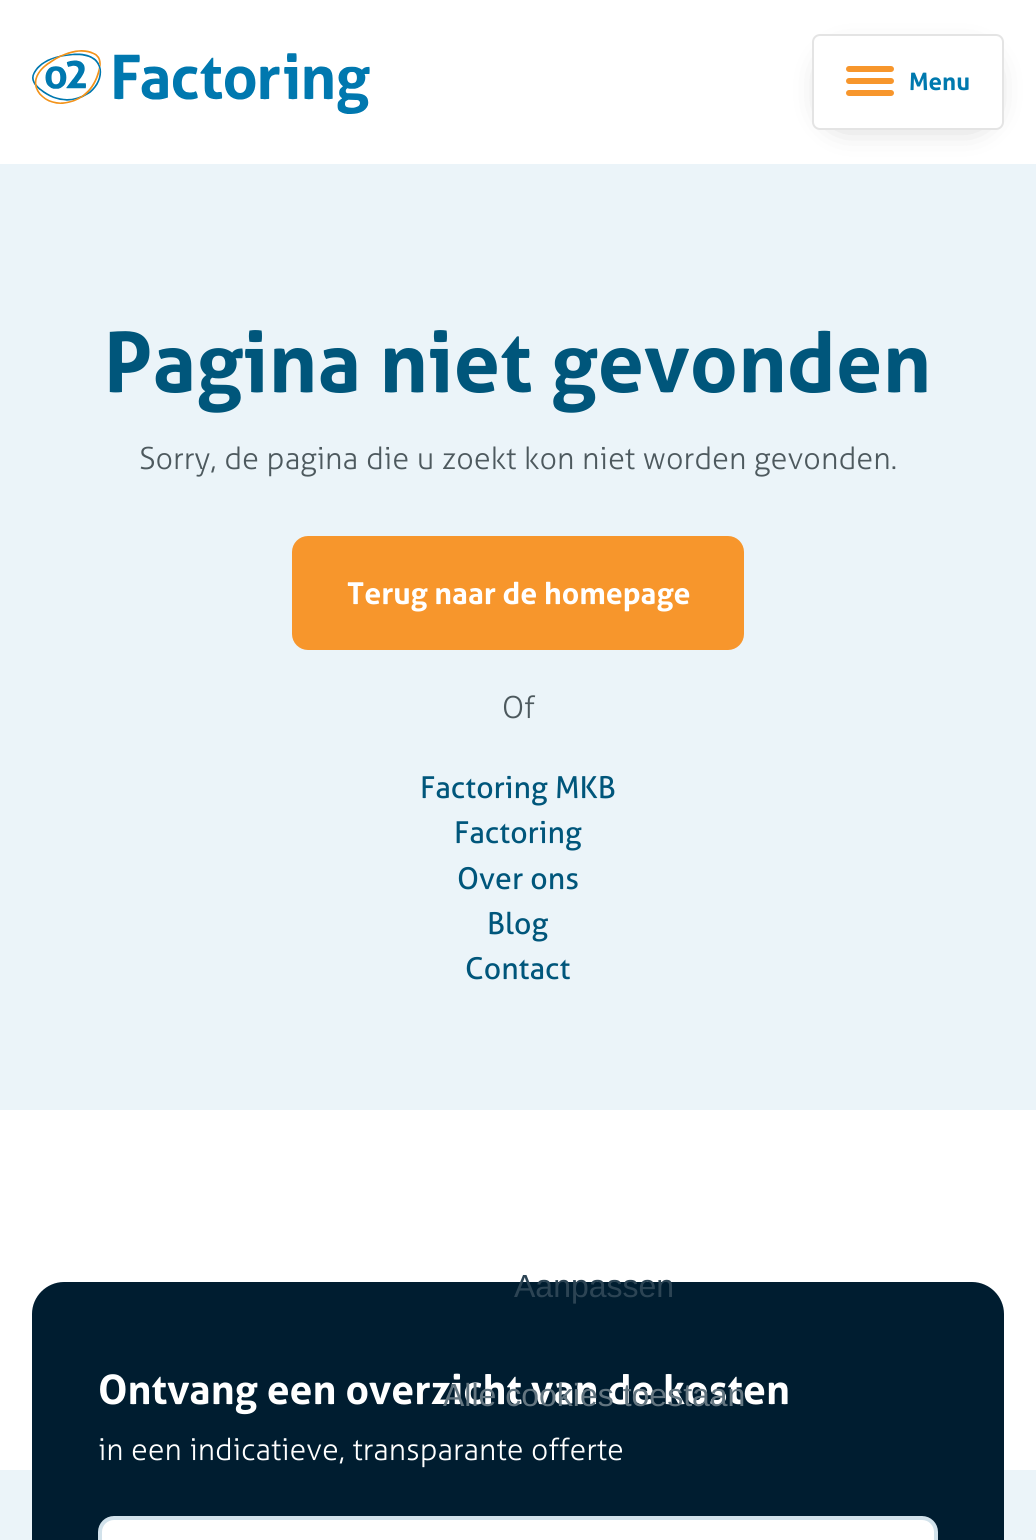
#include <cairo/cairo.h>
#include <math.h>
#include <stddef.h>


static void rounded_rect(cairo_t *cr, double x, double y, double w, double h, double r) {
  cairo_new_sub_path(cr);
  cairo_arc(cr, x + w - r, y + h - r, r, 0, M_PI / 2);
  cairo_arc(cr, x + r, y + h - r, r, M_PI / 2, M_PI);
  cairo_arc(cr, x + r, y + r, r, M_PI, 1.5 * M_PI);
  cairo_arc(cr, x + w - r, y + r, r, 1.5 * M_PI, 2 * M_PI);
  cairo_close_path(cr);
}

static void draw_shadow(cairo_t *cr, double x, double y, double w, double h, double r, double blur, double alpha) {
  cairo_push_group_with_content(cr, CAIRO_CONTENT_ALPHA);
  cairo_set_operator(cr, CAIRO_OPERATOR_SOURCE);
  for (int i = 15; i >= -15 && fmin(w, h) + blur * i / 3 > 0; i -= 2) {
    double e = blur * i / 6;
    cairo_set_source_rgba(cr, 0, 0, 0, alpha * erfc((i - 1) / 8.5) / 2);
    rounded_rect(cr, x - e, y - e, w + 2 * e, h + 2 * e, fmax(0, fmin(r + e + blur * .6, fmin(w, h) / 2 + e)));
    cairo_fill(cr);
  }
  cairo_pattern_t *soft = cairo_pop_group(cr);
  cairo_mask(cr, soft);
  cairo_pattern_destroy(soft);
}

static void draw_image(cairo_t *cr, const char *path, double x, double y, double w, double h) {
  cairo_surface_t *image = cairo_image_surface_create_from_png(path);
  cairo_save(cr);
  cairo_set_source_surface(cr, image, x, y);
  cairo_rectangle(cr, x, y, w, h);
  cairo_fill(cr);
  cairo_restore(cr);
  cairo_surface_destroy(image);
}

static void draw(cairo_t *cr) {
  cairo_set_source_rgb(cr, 1, 1, 1);
  cairo_paint(cr);
  draw_image(cr, "images/1.png", 32, 50, 338, 64);
  cairo_set_source_rgb(cr, 235 / 255.0, 244 / 255.0, 249 / 255.0);
  cairo_rectangle(cr, 0, 164, 1036, 946);
  cairo_fill(cr);
  cairo_set_source_rgb(cr, 30 / 255.0, 30 / 255.0, 30 / 255.0);
  draw_shadow(cr, 828, 58, 160, 64, 16, 16, 0.3);
  cairo_set_source_rgb(cr, 1, 1, 1);
  rounded_rect(cr, 813, 35, 190, 94, 7);
  cairo_fill_preserve(cr);
  cairo_set_source_rgb(cr, 228 / 255.0, 228 / 255.0, 228 / 255.0);
  cairo_stroke(cr);
  cairo_set_source_rgb(cr, 247 / 255.0, 150 / 255.0, 44 / 255.0);
  rounded_rect(cr, 846, 78, 48, 6, 3);
  cairo_fill(cr);
  rounded_rect(cr, 846, 66, 48, 6, 3);
  cairo_fill(cr);
  rounded_rect(cr, 846, 90, 48, 6, 3);
  cairo_fill(cr);
  rounded_rect(cr, 294, 538, 448, 110, 14);
  cairo_fill_preserve(cr);
  cairo_set_line_width(cr, 4);
  cairo_stroke(cr);
  cairo_set_source_rgb(cr, 235 / 255.0, 244 / 255.0, 249 / 255.0);
  cairo_rectangle(cr, 0, 1470, 1036, 70);
  cairo_fill(cr);
  cairo_set_source_rgb(cr, 0, 29 / 255.0, 48 / 255.0);
  cairo_new_path(cr);
  cairo_move_to(cr, 64, 1282);
  cairo_line_to(cr, 972, 1282);
  cairo_curve_to(cr, 989.5, 1282, 1004, 1296.5, 1004, 1314);
  cairo_line_to(cr, 1004, 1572);
  cairo_line_to(cr, 32, 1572);
  cairo_line_to(cr, 32, 1314);
  cairo_curve_to(cr, 32, 1296.5, 46.5, 1282, 64, 1282);
  cairo_close_path(cr);
  cairo_fill(cr);
  cairo_set_source_rgb(cr, 1, 1, 1);
  rounded_rect(cr, 100, 1518, 836, 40, 14);
  cairo_fill_preserve(cr);
  cairo_set_source_rgb(cr, 210 / 255.0, 226 / 255.0, 235 / 255.0);
  cairo_stroke(cr);
  cairo_select_font_face(cr, "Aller", CAIRO_FONT_SLANT_NORMAL, CAIRO_FONT_WEIGHT_BOLD);
  cairo_set_font_size(cr, 24);
  cairo_set_source_rgb(cr, 0, 121 / 255.0, 174 / 255.0);
  cairo_move_to(cr, 909, 90);
  cairo_show_text(cr, "Menu");
  cairo_set_font_size(cr, 83.25);
  cairo_set_source_rgb(cr, 0, 86 / 255.0, 123 / 255.0);
  cairo_move_to(cr, 104, 392);
  cairo_show_text(cr, "Pagina niet gevonden");
  cairo_select_font_face(cr, "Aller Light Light", CAIRO_FONT_SLANT_NORMAL, CAIRO_FONT_WEIGHT_NORMAL);
  cairo_set_font_size(cr, 30.6);
  cairo_set_source_rgb(cr, 77 / 255.0, 89 / 255.0, 94 / 255.0);
  cairo_move_to(cr, 139, 469);
  cairo_show_text(cr, "Sorry, de pagina die u zoekt kon niet worden gevonden.");
  cairo_select_font_face(cr, "Aller", CAIRO_FONT_SLANT_NORMAL, CAIRO_FONT_WEIGHT_BOLD);
  cairo_set_font_size(cr, 30.25);
  cairo_set_source_rgb(cr, 1, 1, 1);
  cairo_move_to(cr, 347, 604);
  cairo_show_text(cr, "Terug naar de homepage");
  cairo_select_font_face(cr, "Aller Light Light", CAIRO_FONT_SLANT_NORMAL, CAIRO_FONT_WEIGHT_NORMAL);
  cairo_set_font_size(cr, 30.6);
  cairo_set_source_rgb(cr, 77 / 255.0, 89 / 255.0, 94 / 255.0);
  cairo_move_to(cr, 502, 718);
  cairo_show_text(cr, "Of");
  cairo_select_font_face(cr, "Aller", CAIRO_FONT_SLANT_NORMAL, CAIRO_FONT_WEIGHT_NORMAL);
  cairo_set_font_size(cr, 30.25);
  cairo_set_source_rgb(cr, 0, 86 / 255.0, 123 / 255.0);
  cairo_move_to(cr, 420, 798);
  cairo_show_text(cr, "Factoring MKB");
  cairo_move_to(cr, 454, 843);
  cairo_show_text(cr, "Factoring");
  cairo_move_to(cr, 457, 889);
  cairo_show_text(cr, "Over ons");
  cairo_move_to(cr, 487, 934);
  cairo_show_text(cr, "Blog");
  cairo_move_to(cr, 465, 979);
  cairo_show_text(cr, "Contact");
  cairo_select_font_face(cr, "Aller", CAIRO_FONT_SLANT_NORMAL, CAIRO_FONT_WEIGHT_BOLD);
  cairo_set_font_size(cr, 40.8);
  cairo_set_source_rgb(cr, 1, 1, 1);
  cairo_move_to(cr, 98, 1404);
  cairo_show_text(cr, "Ontvang een overzicht van de kosten");
  cairo_select_font_face(cr, "Aller Light Light", CAIRO_FONT_SLANT_NORMAL, CAIRO_FONT_WEIGHT_NORMAL);
  cairo_set_font_size(cr, 30.25);
  cairo_move_to(cr, 98, 1460);
  cairo_show_text(cr, "in een indicatieve, transparante offerte");
  cairo_select_font_face(cr, "Liberation Sans", CAIRO_FONT_SLANT_NORMAL, CAIRO_FONT_WEIGHT_NORMAL);
  cairo_set_font_size(cr, 32);
  cairo_set_source_rgb(cr, 44 / 255.0, 68 / 255.0, 84 / 255.0);
  cairo_move_to(cr, 514, 1297);
  cairo_show_text(cr, "Aanpassen");
  cairo_set_source_rgb(cr, 99 / 255.0, 117 / 255.0, 128 / 255.0);
  cairo_move_to(cr, 443, 1406);
  cairo_show_text(cr, "Alle cookies toestaan");
}

int main(void) {
  cairo_surface_t *surface = cairo_image_surface_create(CAIRO_FORMAT_RGB24, 1036, 1540);
  cairo_t *cr = cairo_create(surface);
  cairo_font_options_t *options = cairo_font_options_create();
  cairo_font_options_set_hint_metrics(options, CAIRO_HINT_METRICS_OFF);
  cairo_font_options_set_hint_style(options, CAIRO_HINT_STYLE_NONE);
  cairo_set_font_options(cr, options);
  cairo_set_miter_limit(cr, 4);
  draw(cr);
  cairo_surface_write_to_png(surface, "out.png");
  cairo_font_options_destroy(options);
  cairo_destroy(cr);
  cairo_surface_destroy(surface);
  return 0;
}
